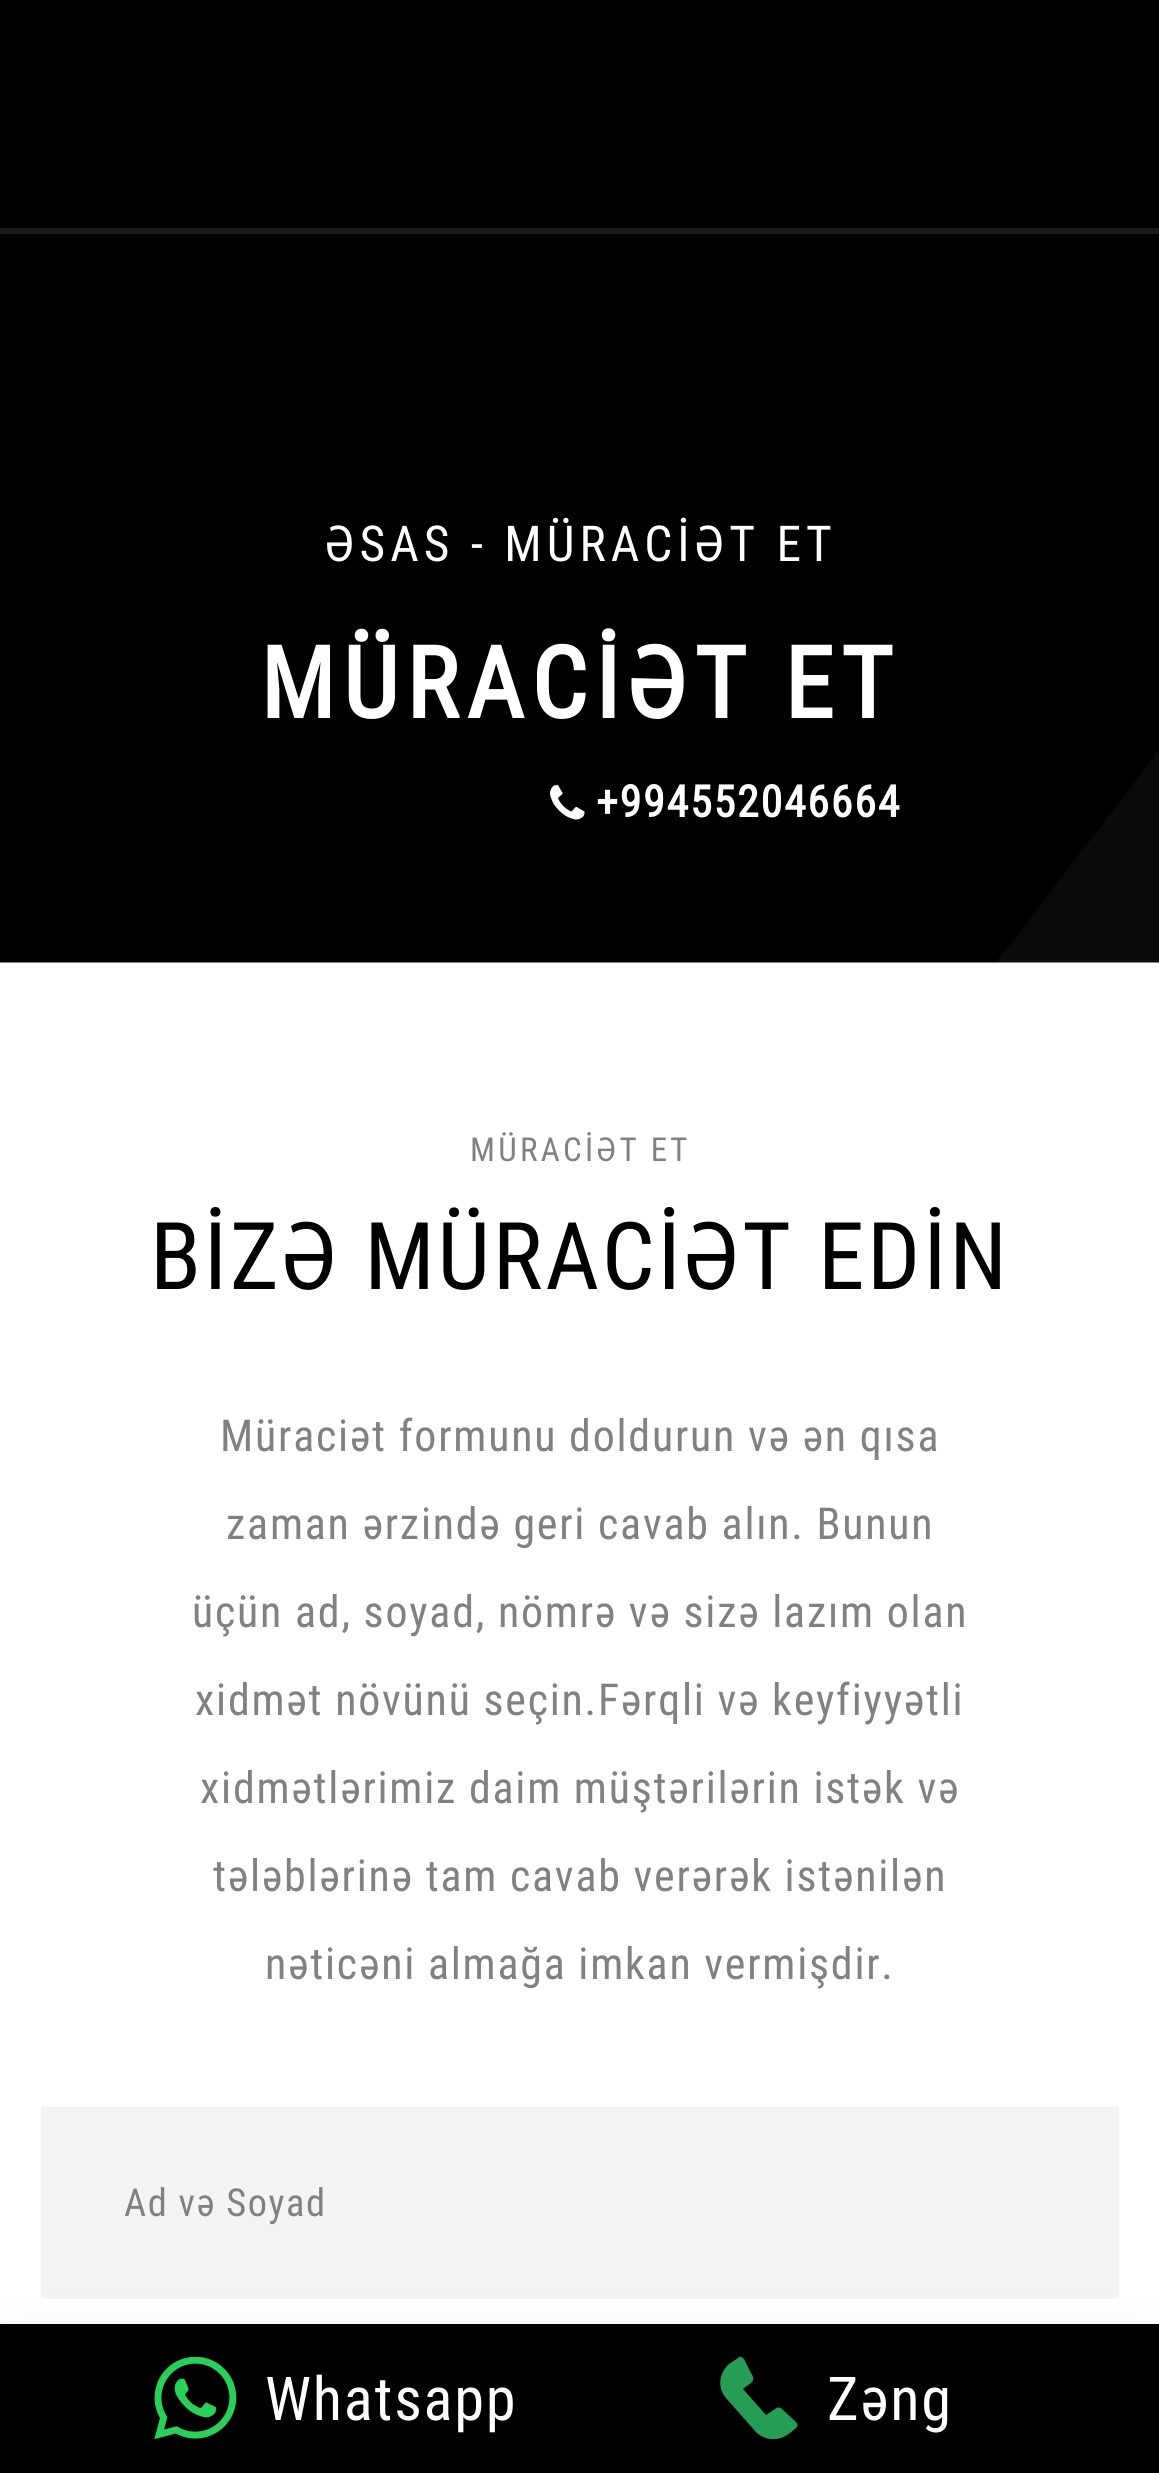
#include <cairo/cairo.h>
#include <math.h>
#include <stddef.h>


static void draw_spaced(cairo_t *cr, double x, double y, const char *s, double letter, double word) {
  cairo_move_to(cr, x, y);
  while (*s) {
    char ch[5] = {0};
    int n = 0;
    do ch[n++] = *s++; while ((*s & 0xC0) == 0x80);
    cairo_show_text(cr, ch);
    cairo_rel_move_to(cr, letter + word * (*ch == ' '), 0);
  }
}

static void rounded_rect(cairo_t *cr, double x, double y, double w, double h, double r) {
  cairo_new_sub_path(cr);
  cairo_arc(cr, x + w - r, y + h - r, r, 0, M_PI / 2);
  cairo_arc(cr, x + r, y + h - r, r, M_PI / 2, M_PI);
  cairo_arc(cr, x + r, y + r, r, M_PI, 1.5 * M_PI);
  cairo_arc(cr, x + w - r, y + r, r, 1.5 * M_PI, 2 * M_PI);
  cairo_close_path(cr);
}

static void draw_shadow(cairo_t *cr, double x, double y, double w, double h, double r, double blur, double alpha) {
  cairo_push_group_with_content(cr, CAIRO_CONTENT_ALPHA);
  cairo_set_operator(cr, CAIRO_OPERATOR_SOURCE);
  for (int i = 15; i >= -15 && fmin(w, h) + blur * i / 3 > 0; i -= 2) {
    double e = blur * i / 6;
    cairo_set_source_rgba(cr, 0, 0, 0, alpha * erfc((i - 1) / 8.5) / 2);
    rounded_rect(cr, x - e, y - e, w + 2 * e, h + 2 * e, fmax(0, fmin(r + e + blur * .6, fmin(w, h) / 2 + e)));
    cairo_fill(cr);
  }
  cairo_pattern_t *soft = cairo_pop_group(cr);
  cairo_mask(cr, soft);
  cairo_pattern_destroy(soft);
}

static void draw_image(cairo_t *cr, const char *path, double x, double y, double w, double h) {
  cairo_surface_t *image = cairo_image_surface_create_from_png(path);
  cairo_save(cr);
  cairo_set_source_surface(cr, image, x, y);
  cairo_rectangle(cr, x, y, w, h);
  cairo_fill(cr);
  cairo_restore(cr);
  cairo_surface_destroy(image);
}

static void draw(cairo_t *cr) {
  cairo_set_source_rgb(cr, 1, 1, 1);
  cairo_paint(cr);
  draw_image(cr, "images/1.png", 0, 0, 1159, 963);
  cairo_set_source_rgb(cr, 26 / 255.0, 26 / 255.0, 26 / 255.0);
  cairo_rectangle(cr, 0, 228, 1159, 6);
  cairo_fill(cr);
  draw_image(cr, "images/2.png", 550, 784, 35, 36);
  cairo_set_source_rgb(cr, 244 / 255.0, 244 / 255.0, 244 / 255.0);
  cairo_rectangle(cr, 41, 2107, 1078, 192);
  cairo_fill(cr);
  cairo_set_source_rgb(cr, 50 / 255.0, 50 / 255.0, 93 / 255.0);
  draw_shadow(cr, 14, 2373, 1133, 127, 0, 37, 0.25);
  cairo_set_source_rgb(cr, 0, 0, 0);
  cairo_rectangle(cr, 0, 2324, 1159, 149);
  cairo_fill(cr);
  draw_image(cr, "images/3.png", 154, 2357, 83, 82);
  cairo_save(cr);
  cairo_rectangle(cr, 690, 2357, 138, 82);
  cairo_clip(cr);
  cairo_set_source_rgb(cr, 38 / 255.0, 157 / 255.0, 84 / 255.0);
  cairo_set_fill_rule(cr, CAIRO_FILL_RULE_EVEN_ODD);
  cairo_new_path(cr);
  cairo_move_to(cr, 744, 2359);
  cairo_curve_to(cr, 742, 2357, 740, 2356, 738, 2358);
  cairo_line_to(cr, 729, 2364);
  cairo_curve_to(cr, 719, 2373, 717, 2388, 726, 2398);
  cairo_line_to(cr, 755, 2431);
  cairo_curve_to(cr, 764, 2441, 779, 2442, 790, 2433);
  cairo_line_to(cr, 796, 2428);
  cairo_curve_to(cr, 798, 2426, 798, 2424, 796, 2422);
  cairo_line_to(cr, 782, 2409);
  cairo_curve_to(cr, 780, 2407, 777, 2407, 775, 2409);
  cairo_line_to(cr, 766, 2415);
  cairo_line_to(cr, 743, 2389);
  cairo_curve_to(cr, 750, 2383, 757, 2382, 751, 2373);
  cairo_close_path(cr);
  cairo_fill(cr);
  cairo_restore(cr);
  cairo_select_font_face(cr, "Roboto Condensed", CAIRO_FONT_SLANT_NORMAL, CAIRO_FONT_WEIGHT_NORMAL);
  cairo_set_font_size(cr, 49.5);
  cairo_set_source_rgb(cr, 1, 1, 1);
  draw_spaced(cr, 325, 561, "ƏSAS - MÜRACİƏT ET", 5, 0);
  cairo_select_font_face(cr, "Roboto Condensed", CAIRO_FONT_SLANT_NORMAL, CAIRO_FONT_WEIGHT_BOLD);
  cairo_set_font_size(cr, 99);
  draw_spaced(cr, 260, 718, "MÜRACİƏT ET", 7.75, 0);
  cairo_set_font_size(cr, 44);
  draw_spaced(cr, 596, 817, "+994552046664", 1.75, 0);
  cairo_select_font_face(cr, "Roboto Condensed", CAIRO_FONT_SLANT_NORMAL, CAIRO_FONT_WEIGHT_NORMAL);
  cairo_set_font_size(cr, 33);
  cairo_set_source_rgb(cr, 129 / 255.0, 129 / 255.0, 129 / 255.0);
  draw_spaced(cr, 470, 1161, "MÜRACİƏT ET", 3.25, 0);
  cairo_set_font_size(cr, 93.5);
  cairo_set_source_rgb(cr, 0, 0, 0);
  draw_spaced(cr, 150, 1289, "BİZƏ MÜRACİƏT EDİN", 2.75, 0);
  cairo_set_font_size(cr, 44);
  cairo_set_source_rgb(cr, 129 / 255.0, 129 / 255.0, 129 / 255.0);
  draw_spaced(cr, 220, 1451, "Müraciət formunu doldurun və ən qısa", 1.75, 0);
  draw_spaced(cr, 226, 1539, "zaman ərzində geri cavab alın. Bunun", 1.75, 0);
  draw_spaced(cr, 192, 1627, "üçün ad, soyad, nömrə və sizə lazım olan", 1.75, 0);
  draw_spaced(cr, 195, 1715, "xidmət növünü seçin.Fərqli və keyfiyyətli", 1.75, 0);
  draw_spaced(cr, 200, 1803, "xidmətlərimiz daim müştərilərin istək və", 1.75, 0);
  draw_spaced(cr, 213, 1891, "tələblərinə tam cavab verərək istənilən", 1.75, 0);
  draw_spaced(cr, 265, 1979, "nəticəni almağa imkan vermişdir.", 1.75, 0);
  cairo_set_font_size(cr, 38.5);
  draw_spaced(cr, 124, 2216, "Ad və Soyad", 1.5, 0);
  cairo_set_font_size(cr, 60.5);
  cairo_set_source_rgb(cr, 1, 1, 1);
  draw_spaced(cr, 265, 2420, "Whatsapp", 1.75, 0);
  draw_spaced(cr, 827, 2420, "Zəng", 1.75, 0);
}

int main(void) {
  cairo_surface_t *surface = cairo_image_surface_create(CAIRO_FORMAT_RGB24, 1159, 2473);
  cairo_t *cr = cairo_create(surface);
  cairo_font_options_t *options = cairo_font_options_create();
  cairo_font_options_set_hint_metrics(options, CAIRO_HINT_METRICS_OFF);
  cairo_font_options_set_hint_style(options, CAIRO_HINT_STYLE_NONE);
  cairo_set_font_options(cr, options);
  cairo_set_miter_limit(cr, 4);
  draw(cr);
  cairo_surface_write_to_png(surface, "out.png");
  cairo_font_options_destroy(options);
  cairo_destroy(cr);
  cairo_surface_destroy(surface);
  return 0;
}
